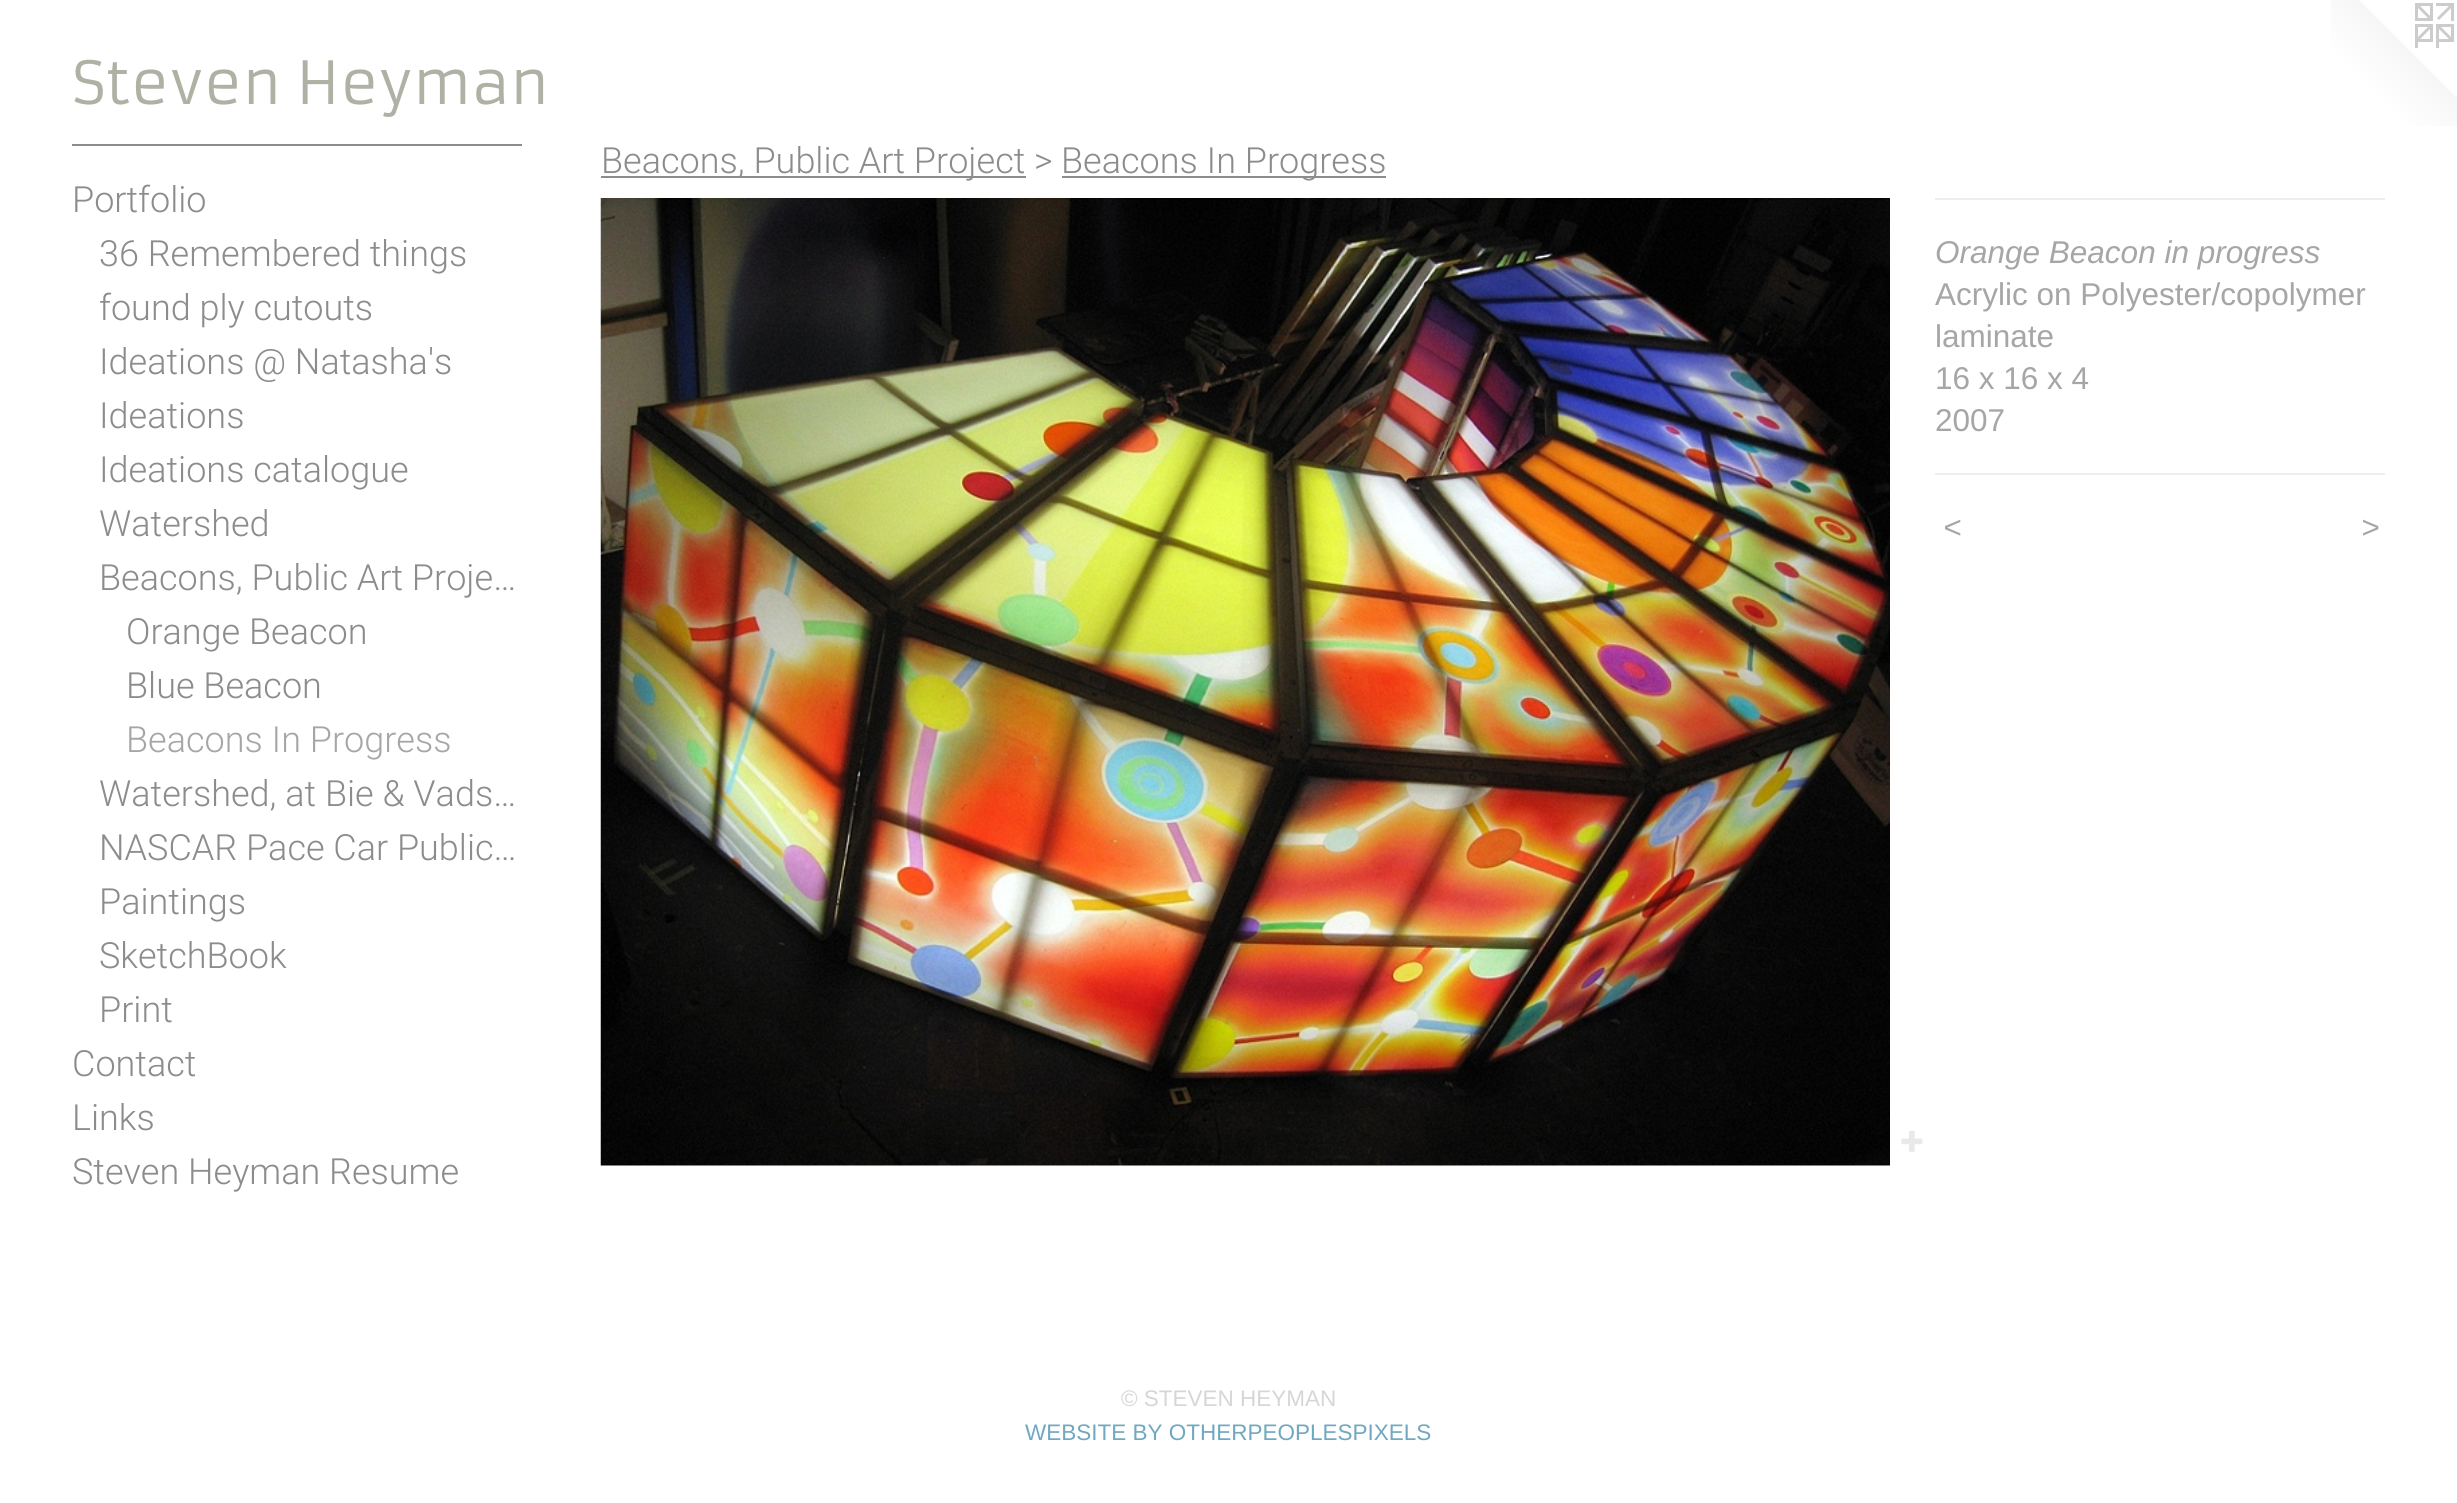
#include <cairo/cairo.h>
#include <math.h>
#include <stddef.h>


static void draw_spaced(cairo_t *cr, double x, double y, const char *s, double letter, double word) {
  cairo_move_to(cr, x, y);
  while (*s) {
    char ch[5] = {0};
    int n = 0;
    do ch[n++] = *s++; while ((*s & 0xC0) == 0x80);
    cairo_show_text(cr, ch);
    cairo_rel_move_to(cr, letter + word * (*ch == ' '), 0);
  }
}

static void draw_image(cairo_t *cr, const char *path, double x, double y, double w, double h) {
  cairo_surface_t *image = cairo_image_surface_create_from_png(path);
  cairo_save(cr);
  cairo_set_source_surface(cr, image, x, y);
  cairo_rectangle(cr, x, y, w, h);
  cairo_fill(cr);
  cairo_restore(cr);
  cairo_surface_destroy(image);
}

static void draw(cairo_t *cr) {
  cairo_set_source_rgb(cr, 1, 1, 1);
  cairo_paint(cr);
  draw_image(cr, "images/1.png", 2331, 0, 126, 126);
  cairo_set_source_rgb(cr, 140 / 255.0, 140 / 255.0, 140 / 255.0);
  cairo_rectangle(cr, 72, 144, 450, 2);
  cairo_fill(cr);
  cairo_rectangle(cr, 601, 176, 425, 2);
  cairo_fill(cr);
  cairo_rectangle(cr, 1062, 176, 324, 2);
  cairo_fill(cr);
  draw_image(cr, "images/2.png", 600, 198, 1290, 968);
  draw_image(cr, "images/3.png", 1901, 1130, 22, 22);
  cairo_set_source_rgb(cr, 238 / 255.0, 238 / 255.0, 238 / 255.0);
  cairo_rectangle(cr, 1935, 198, 450, 2);
  cairo_fill(cr);
  cairo_rectangle(cr, 1935, 473, 450, 2);
  cairo_fill(cr);
  cairo_select_font_face(cr, "Armata", CAIRO_FONT_SLANT_NORMAL, CAIRO_FONT_WEIGHT_NORMAL);
  cairo_set_font_size(cr, 58.5);
  cairo_set_source_rgb(cr, 176 / 255.0, 177 / 255.0, 165 / 255.0);
  cairo_move_to(cr, 72, 104);
  cairo_show_text(cr, "Steven Heyman");
  cairo_select_font_face(cr, "Roboto Light", CAIRO_FONT_SLANT_NORMAL, CAIRO_FONT_WEIGHT_NORMAL);
  cairo_set_font_size(cr, 36);
  cairo_set_source_rgb(cr, 140 / 255.0, 140 / 255.0, 140 / 255.0);
  cairo_move_to(cr, 72, 212);
  cairo_show_text(cr, "Portfolio");
  cairo_move_to(cr, 99, 266);
  cairo_show_text(cr, "36 Remembered things");
  cairo_move_to(cr, 99, 320);
  cairo_show_text(cr, "found ply cutouts");
  cairo_move_to(cr, 99, 374);
  cairo_show_text(cr, "Ideations @ Natasha's");
  cairo_move_to(cr, 99, 428);
  cairo_show_text(cr, "Ideations");
  cairo_move_to(cr, 99, 482);
  cairo_show_text(cr, "Ideations catalogue");
  cairo_move_to(cr, 99, 536);
  cairo_show_text(cr, "Watershed");
  cairo_move_to(cr, 99, 590);
  cairo_show_text(cr, "Beacons, Public Art Proje…");
  cairo_move_to(cr, 126, 644);
  cairo_show_text(cr, "Orange Beacon");
  cairo_move_to(cr, 126, 698);
  cairo_show_text(cr, "Blue Beacon");
  cairo_set_source_rgb(cr, 166 / 255.0, 166 / 255.0, 166 / 255.0);
  cairo_move_to(cr, 126, 752);
  cairo_show_text(cr, "Beacons In Progress");
  cairo_set_source_rgb(cr, 140 / 255.0, 140 / 255.0, 140 / 255.0);
  cairo_move_to(cr, 99, 806);
  cairo_show_text(cr, "Watershed, at Bie & Vads…");
  cairo_move_to(cr, 99, 860);
  cairo_show_text(cr, "NASCAR Pace Car Public…");
  cairo_move_to(cr, 99, 914);
  cairo_show_text(cr, "Paintings");
  cairo_move_to(cr, 99, 968);
  cairo_show_text(cr, "SketchBook");
  cairo_move_to(cr, 99, 1022);
  cairo_show_text(cr, "Print");
  cairo_move_to(cr, 72, 1076);
  cairo_show_text(cr, "Contact");
  cairo_move_to(cr, 72, 1130);
  cairo_show_text(cr, "Links");
  cairo_move_to(cr, 72, 1184);
  cairo_show_text(cr, "Steven Heyman Resume");
  cairo_move_to(cr, 601, 173);
  cairo_show_text(cr, "Beacons, Public Art Project >");
  cairo_move_to(cr, 1061, 173);
  cairo_show_text(cr, "Beacons In Progress");
  cairo_select_font_face(cr, "Liberation Sans", CAIRO_FONT_SLANT_ITALIC, CAIRO_FONT_WEIGHT_NORMAL);
  cairo_set_font_size(cr, 31.5);
  cairo_set_source_rgb(cr, 166 / 255.0, 166 / 255.0, 166 / 255.0);
  cairo_move_to(cr, 1935, 263);
  cairo_show_text(cr, "Orange Beacon in progress");
  cairo_select_font_face(cr, "Liberation Sans", CAIRO_FONT_SLANT_NORMAL, CAIRO_FONT_WEIGHT_NORMAL);
  cairo_move_to(cr, 1935, 305);
  cairo_show_text(cr, "Acrylic on Polyester/copolymer");
  cairo_move_to(cr, 1935, 347);
  cairo_show_text(cr, "laminate");
  cairo_move_to(cr, 1935, 389);
  cairo_show_text(cr, "16 x 16 x 4");
  cairo_move_to(cr, 1935, 431);
  cairo_show_text(cr, "2007");
  cairo_select_font_face(cr, "Liberation Sans", CAIRO_FONT_SLANT_ITALIC, CAIRO_FONT_WEIGHT_NORMAL);
  draw_spaced(cr, 1943, 538, "<", 2, 0);
  draw_spaced(cr, 2361, 538, ">", 2, 0);
  cairo_select_font_face(cr, "Liberation Sans", CAIRO_FONT_SLANT_NORMAL, CAIRO_FONT_WEIGHT_NORMAL);
  cairo_set_font_size(cr, 22.5);
  cairo_set_source_rgb(cr, 214 / 255.0, 214 / 255.0, 214 / 255.0);
  cairo_move_to(cr, 1121, 1406);
  cairo_show_text(cr, "© STEVEN HEYMAN");
  cairo_set_source_rgb(cr, 112 / 255.0, 168 / 255.0, 192 / 255.0);
  cairo_move_to(cr, 1025, 1440);
  cairo_show_text(cr, "WEBSITE BY OTHERPEOPLESPIXELS");
}

int main(void) {
  cairo_surface_t *surface = cairo_image_surface_create(CAIRO_FORMAT_RGB24, 2457, 1503);
  cairo_t *cr = cairo_create(surface);
  cairo_font_options_t *options = cairo_font_options_create();
  cairo_font_options_set_hint_metrics(options, CAIRO_HINT_METRICS_OFF);
  cairo_font_options_set_hint_style(options, CAIRO_HINT_STYLE_NONE);
  cairo_set_font_options(cr, options);
  cairo_set_miter_limit(cr, 4);
  draw(cr);
  cairo_surface_write_to_png(surface, "out.png");
  cairo_font_options_destroy(options);
  cairo_destroy(cr);
  cairo_surface_destroy(surface);
  return 0;
}
